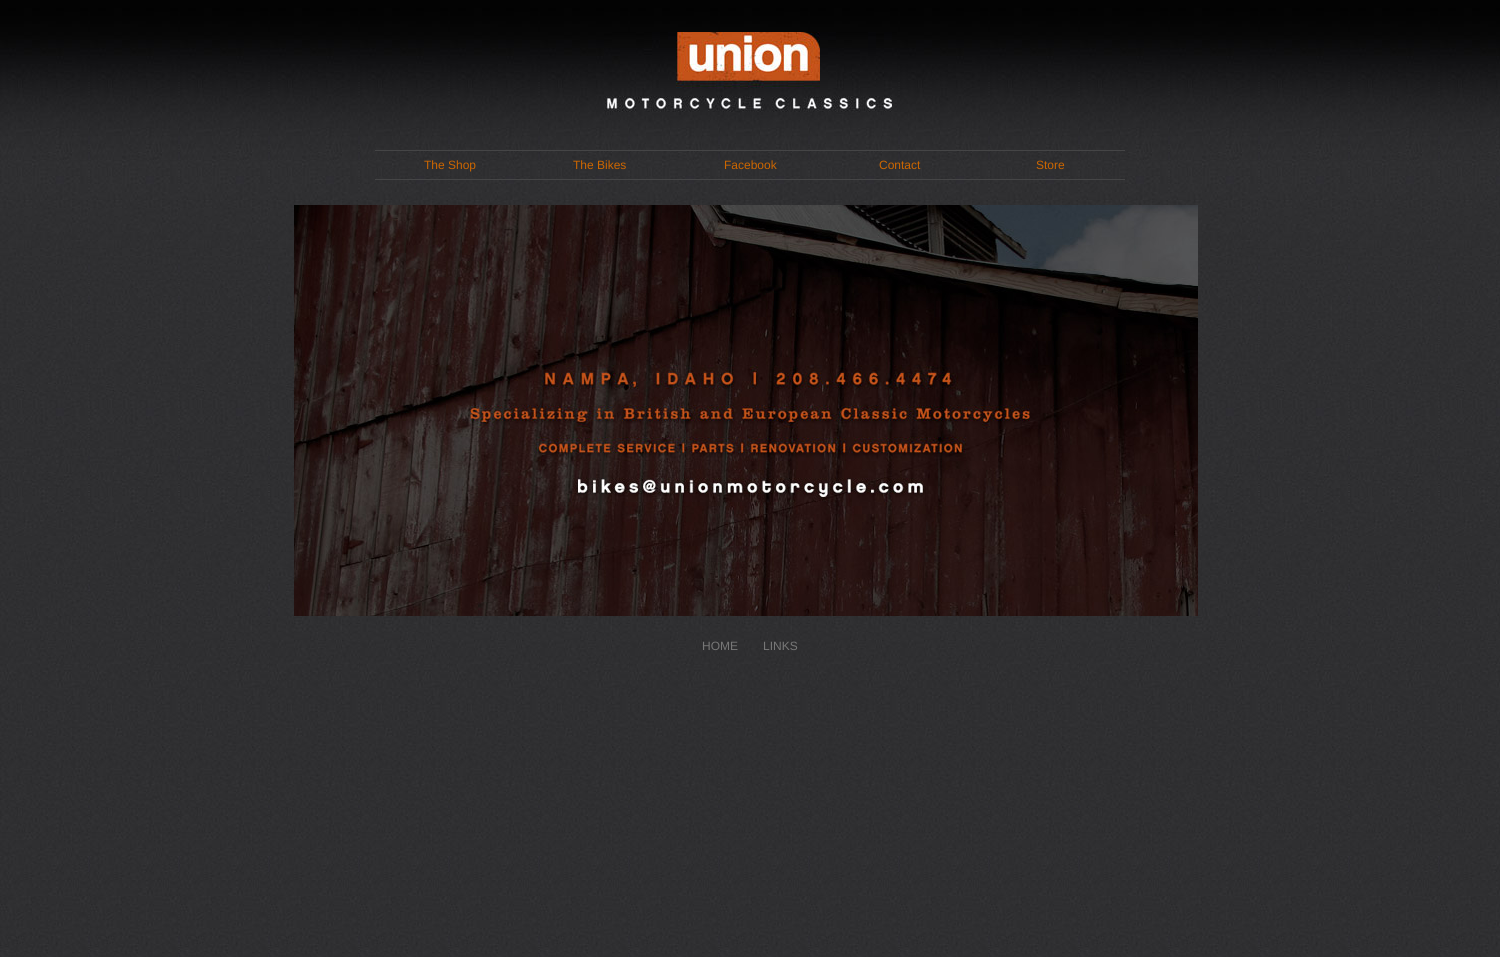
#include <cairo/cairo.h>
#include <math.h>
#include <stddef.h>


static void draw_image(cairo_t *cr, const char *path, double x, double y, double w, double h) {
  cairo_surface_t *image = cairo_image_surface_create_from_png(path);
  cairo_save(cr);
  cairo_set_source_surface(cr, image, x, y);
  cairo_rectangle(cr, x, y, w, h);
  cairo_fill(cr);
  cairo_restore(cr);
  cairo_surface_destroy(image);
}

static void draw(cairo_t *cr) {
  cairo_set_source_rgb(cr, 1, 1, 1);
  cairo_paint(cr);
  draw_image(cr, "images/1.png", 0, 0, 1500, 957);
  draw_image(cr, "images/2.png", 604, 32, 293, 83);
  cairo_set_source_rgb(cr, 69 / 255.0, 69 / 255.0, 70 / 255.0);
  cairo_rectangle(cr, 375, 150, 750, 1);
  cairo_fill(cr);
  cairo_rectangle(cr, 375, 179, 750, 1);
  cairo_fill(cr);
  draw_image(cr, "images/3.png", 294, 205, 904, 265);
  draw_image(cr, "images/4.png", 294, 470, 278, 36);
  draw_image(cr, "images/5.png", 572, 470, 358, 36);
  draw_image(cr, "images/6.png", 930, 470, 268, 36);
  draw_image(cr, "images/7.png", 294, 506, 904, 110);
  cairo_select_font_face(cr, "Liberation Sans", CAIRO_FONT_SLANT_NORMAL, CAIRO_FONT_WEIGHT_NORMAL);
  cairo_set_font_size(cr, 12);
  cairo_set_source_rgb(cr, 204 / 255.0, 102 / 255.0, 0);
  cairo_move_to(cr, 424, 169);
  cairo_show_text(cr, "The Shop");
  cairo_move_to(cr, 573, 169);
  cairo_show_text(cr, "The Bikes");
  cairo_move_to(cr, 724, 169);
  cairo_show_text(cr, "Facebook");
  cairo_move_to(cr, 879, 169);
  cairo_show_text(cr, "Contact");
  cairo_move_to(cr, 1036, 169);
  cairo_show_text(cr, "Store");
  cairo_set_source_rgb(cr, 119 / 255.0, 119 / 255.0, 119 / 255.0);
  cairo_move_to(cr, 702, 650);
  cairo_show_text(cr, "HOME");
  cairo_move_to(cr, 763, 650);
  cairo_show_text(cr, "LINKS");
}

int main(void) {
  cairo_surface_t *surface = cairo_image_surface_create(CAIRO_FORMAT_RGB24, 1500, 957);
  cairo_t *cr = cairo_create(surface);
  cairo_font_options_t *options = cairo_font_options_create();
  cairo_font_options_set_hint_metrics(options, CAIRO_HINT_METRICS_OFF);
  cairo_font_options_set_hint_style(options, CAIRO_HINT_STYLE_NONE);
  cairo_set_font_options(cr, options);
  cairo_set_miter_limit(cr, 4);
  draw(cr);
  cairo_surface_write_to_png(surface, "out.png");
  cairo_font_options_destroy(options);
  cairo_destroy(cr);
  cairo_surface_destroy(surface);
  return 0;
}
